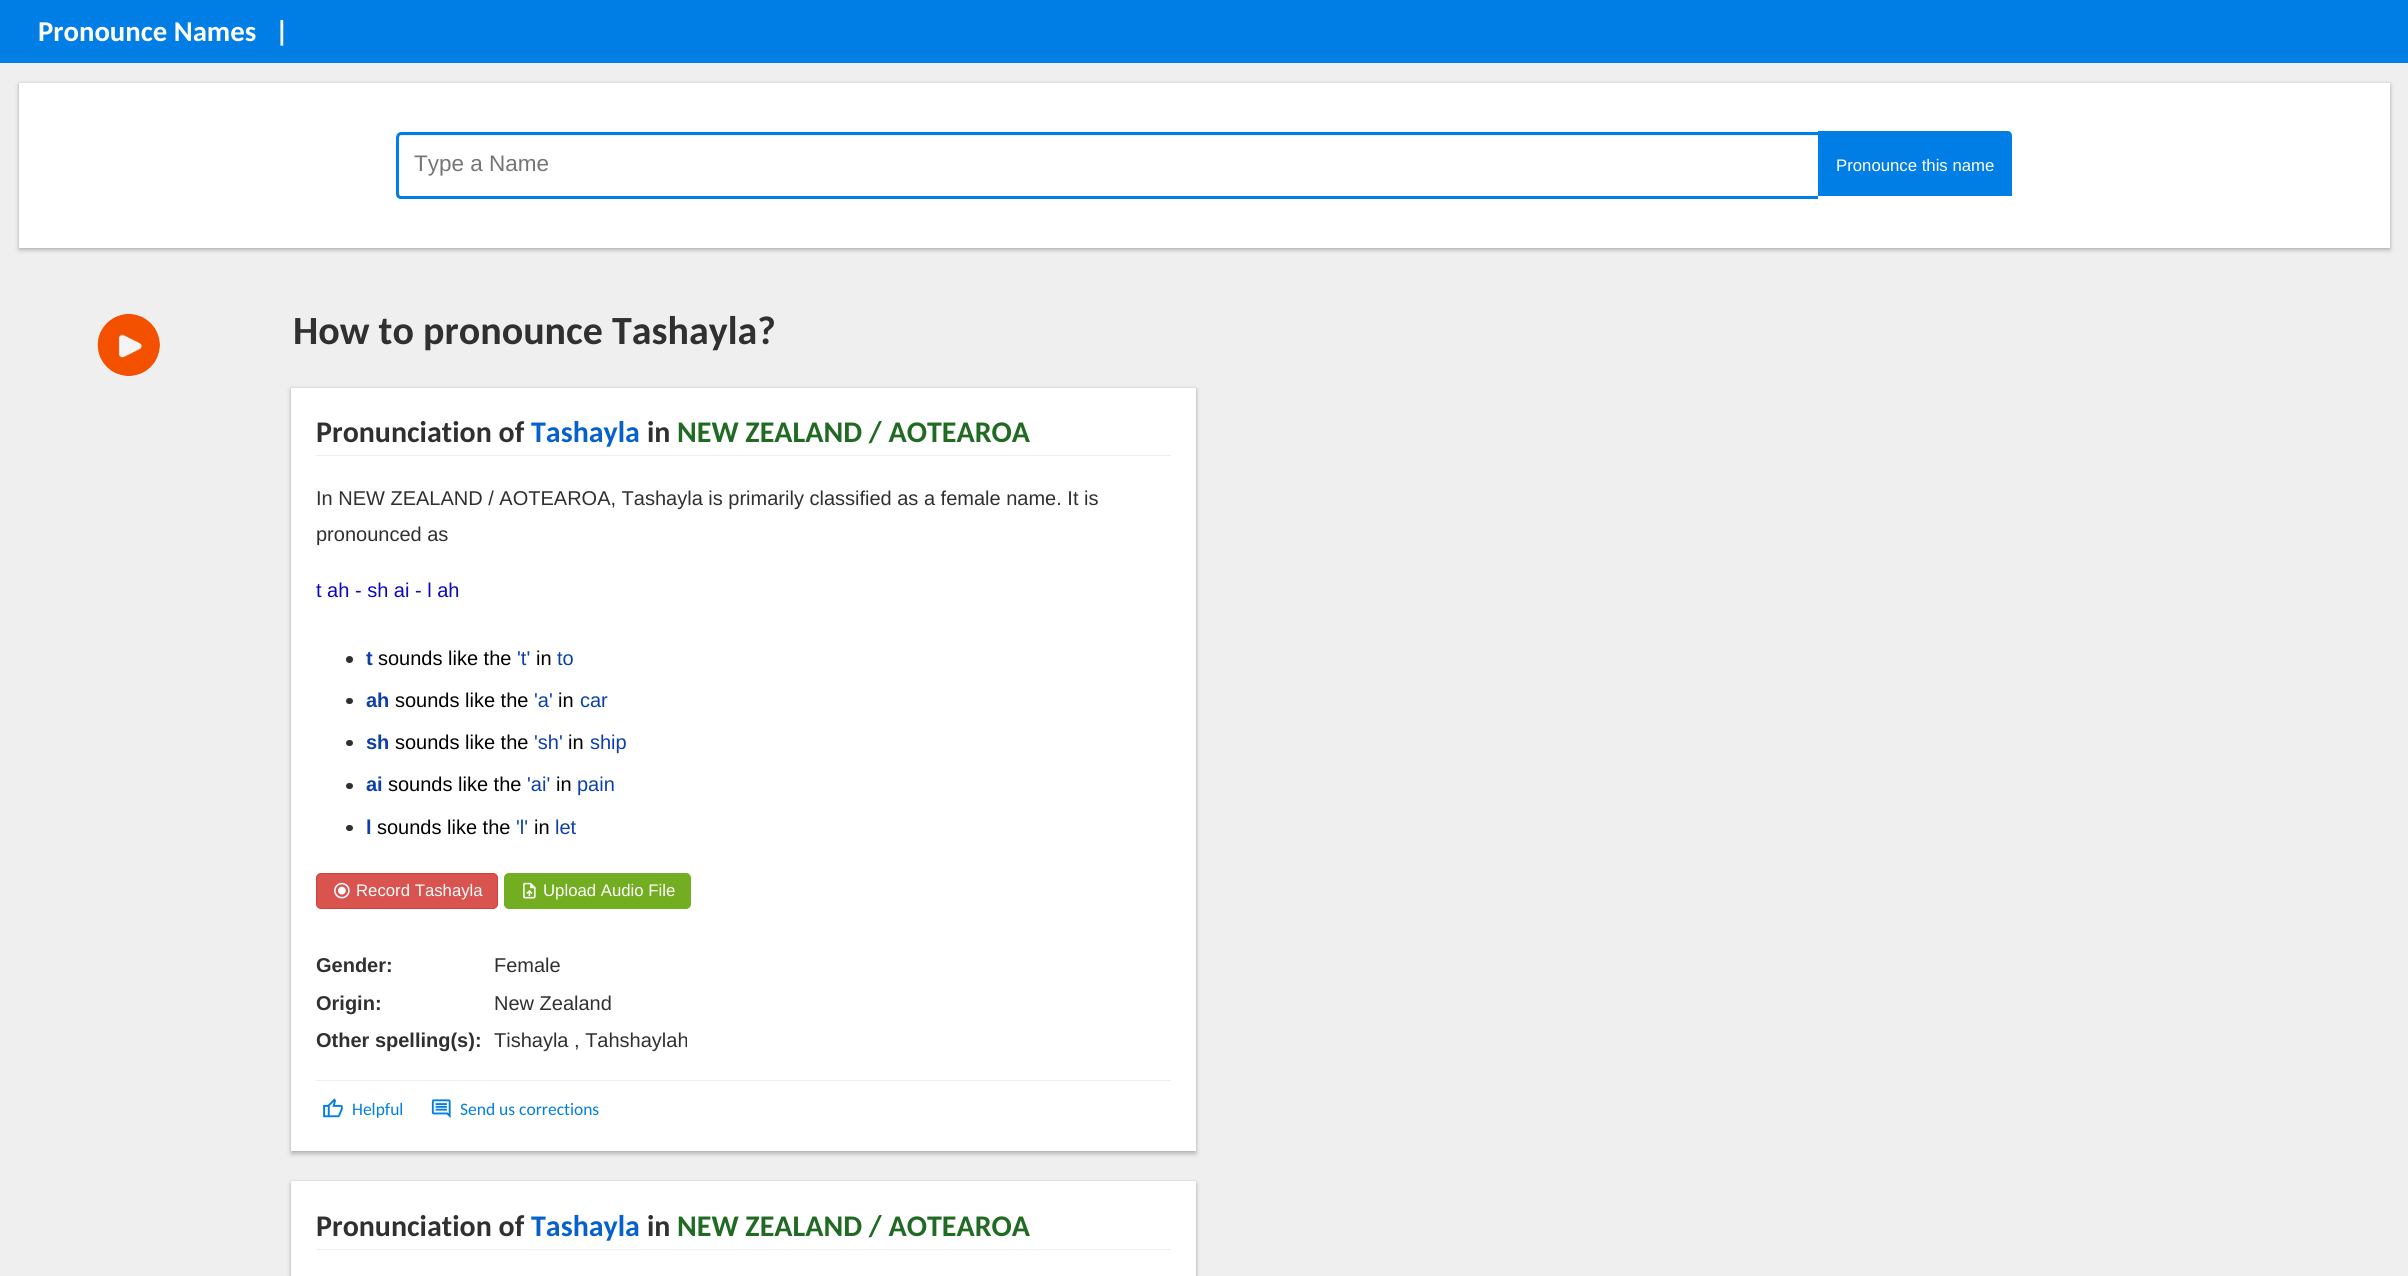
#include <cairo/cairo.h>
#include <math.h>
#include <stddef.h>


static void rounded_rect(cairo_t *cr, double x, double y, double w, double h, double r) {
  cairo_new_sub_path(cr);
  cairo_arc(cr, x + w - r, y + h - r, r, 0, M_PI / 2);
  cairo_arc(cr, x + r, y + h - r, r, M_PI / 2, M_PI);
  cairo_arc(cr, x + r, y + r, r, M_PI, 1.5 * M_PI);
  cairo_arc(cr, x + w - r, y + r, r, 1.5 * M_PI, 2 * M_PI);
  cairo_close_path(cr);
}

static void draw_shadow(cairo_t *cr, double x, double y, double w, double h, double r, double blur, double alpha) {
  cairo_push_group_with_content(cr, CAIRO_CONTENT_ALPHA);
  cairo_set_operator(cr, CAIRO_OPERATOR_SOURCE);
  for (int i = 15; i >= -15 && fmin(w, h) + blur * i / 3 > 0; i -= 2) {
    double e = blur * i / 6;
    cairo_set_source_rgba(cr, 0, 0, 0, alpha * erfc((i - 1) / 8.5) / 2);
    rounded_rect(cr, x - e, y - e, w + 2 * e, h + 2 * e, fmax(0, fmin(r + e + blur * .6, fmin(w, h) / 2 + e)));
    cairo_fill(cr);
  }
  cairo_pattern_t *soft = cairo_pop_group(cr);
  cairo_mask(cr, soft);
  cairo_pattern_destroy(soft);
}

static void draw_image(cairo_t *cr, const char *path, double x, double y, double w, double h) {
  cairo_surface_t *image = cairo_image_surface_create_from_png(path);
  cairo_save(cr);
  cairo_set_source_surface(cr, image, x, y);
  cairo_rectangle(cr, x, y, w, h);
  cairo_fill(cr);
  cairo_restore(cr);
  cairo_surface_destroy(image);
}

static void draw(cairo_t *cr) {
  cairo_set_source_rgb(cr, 239 / 255.0, 239 / 255.0, 239 / 255.0);
  cairo_paint(cr);
  cairo_set_source_rgb(cr, 0, 126 / 255.0, 229 / 255.0);
  cairo_rectangle(cr, 0, 0, 2408, 63);
  cairo_fill(cr);
  cairo_set_source_rgb(cr, 0, 0, 0);
  draw_shadow(cr, 19, 85, 2371, 165, 0, 2.5, 0.24);
  draw_shadow(cr, 19, 83, 2371, 165, 0, 1, 0.12);
  cairo_set_source_rgb(cr, 1, 1, 1);
  cairo_rectangle(cr, 19, 83, 2371, 165);
  cairo_fill(cr);
  cairo_set_source_rgb(cr, 236 / 255.0, 236 / 255.0, 236 / 255.0);
  cairo_new_path(cr);
  cairo_move_to(cr, 401, 136);
  cairo_line_to(cr, 1818, 136);
  cairo_line_to(cr, 1818, 135);
  cairo_line_to(cr, 402, 135);
  cairo_curve_to(cr, 399, 135, 399, 137, 399, 139);
  cairo_curve_to(cr, 399, 137, 400, 136, 401, 136);
  cairo_close_path(cr);
  cairo_fill(cr);
  cairo_set_source_rgb(cr, 0, 126 / 255.0, 229 / 255.0);
  cairo_set_fill_rule(cr, CAIRO_FILL_RULE_EVEN_ODD);
  cairo_new_path(cr);
  cairo_move_to(cr, 401, 132);
  cairo_line_to(cr, 1818, 132);
  cairo_line_to(cr, 1818, 199);
  cairo_line_to(cr, 401, 199);
  cairo_curve_to(cr, 398, 199, 396, 197, 396, 194);
  cairo_line_to(cr, 396, 138);
  cairo_curve_to(cr, 396, 135, 398, 132, 401, 132);
  cairo_close_path(cr);
  cairo_move_to(cr, 401, 135);
  cairo_line_to(cr, 1818, 135);
  cairo_line_to(cr, 1818, 196);
  cairo_line_to(cr, 401, 196);
  cairo_curve_to(cr, 400, 196, 399, 195, 399, 194);
  cairo_line_to(cr, 399, 138);
  cairo_curve_to(cr, 399, 136, 400, 135, 401, 135);
  cairo_close_path(cr);
  cairo_fill(cr);
  cairo_new_path(cr);
  cairo_move_to(cr, 1821, 135);
  cairo_line_to(cr, 2008, 135);
  cairo_curve_to(cr, 2008.5, 135, 2009, 135.5, 2009, 136);
  cairo_line_to(cr, 2009, 196);
  cairo_line_to(cr, 1821, 196);
  cairo_close_path(cr);
  cairo_fill(cr);
  cairo_new_path(cr);
  cairo_move_to(cr, 1818, 131);
  cairo_line_to(cr, 2008, 131);
  cairo_curve_to(cr, 2010, 131, 2012, 133, 2012, 136);
  cairo_line_to(cr, 2012, 196);
  cairo_line_to(cr, 1818, 196);
  cairo_close_path(cr);
  cairo_move_to(cr, 1821, 135);
  cairo_line_to(cr, 2008, 135);
  cairo_curve_to(cr, 2008, 135, 2009, 136, 2009, 136);
  cairo_line_to(cr, 2009, 196);
  cairo_line_to(cr, 1821, 196);
  cairo_close_path(cr);
  cairo_fill(cr);
  draw_image(cr, "images/1.png", 97, 313, 63, 64);
  cairo_set_source_rgb(cr, 0, 0, 0);
  draw_shadow(cr, 291, 390, 905, 764, 0, 2.5, 0.24);
  draw_shadow(cr, 291, 388, 905, 763, 0, 1, 0.12);
  cairo_set_source_rgb(cr, 1, 1, 1);
  cairo_rectangle(cr, 291, 388, 905, 763);
  cairo_fill(cr);
  cairo_set_source_rgb(cr, 238 / 255.0, 238 / 255.0, 238 / 255.0);
  cairo_rectangle(cr, 316, 455, 855, 1);
  cairo_fill(cr);
  cairo_set_source_rgb(cr, 49 / 255.0, 48 / 255.0, 48 / 255.0);
  cairo_arc(cr, 349.5, 659.5, 3.5, 0, 2 * M_PI);
  cairo_fill(cr);
  rounded_rect(cr, 346, 698, 7, 6, 3);
  cairo_fill(cr);
  rounded_rect(cr, 346, 740, 7, 6, 3);
  cairo_fill(cr);
  rounded_rect(cr, 346, 783, 7, 6, 3);
  cairo_fill(cr);
  rounded_rect(cr, 346, 825, 7, 6, 3);
  cairo_fill(cr);
  cairo_set_source_rgb(cr, 217 / 255.0, 83 / 255.0, 79 / 255.0);
  rounded_rect(cr, 316.5, 873.5, 181, 35, 4.5);
  cairo_fill_preserve(cr);
  cairo_set_source_rgb(cr, 212 / 255.0, 63 / 255.0, 58 / 255.0);
  cairo_set_line_width(cr, 1);
  cairo_stroke(cr);
  draw_image(cr, "images/2.png", 334, 882, 16, 17);
  cairo_set_source_rgb(cr, 115 / 255.0, 173 / 255.0, 33 / 255.0);
  rounded_rect(cr, 504.5, 873.5, 186, 35, 4.5);
  cairo_fill_preserve(cr);
  cairo_stroke(cr);
  draw_image(cr, "images/3.png", 523, 882, 13, 17);
  cairo_set_source_rgb(cr, 238 / 255.0, 238 / 255.0, 238 / 255.0);
  cairo_rectangle(cr, 316, 1080, 855, 1);
  cairo_fill(cr);
  draw_image(cr, "images/4.png", 323, 1098, 20, 20);
  draw_image(cr, "images/5.png", 431, 1099, 20, 19);
  cairo_set_source_rgb(cr, 0, 0, 0);
  draw_shadow(cr, 291, 1184, 905, 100, 0, 2.5, 0.24);
  draw_shadow(cr, 291, 1181, 905, 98, 0, 1, 0.12);
  cairo_set_source_rgb(cr, 1, 1, 1);
  cairo_rectangle(cr, 291, 1181, 905, 95);
  cairo_fill(cr);
  cairo_set_source_rgb(cr, 238 / 255.0, 238 / 255.0, 238 / 255.0);
  cairo_rectangle(cr, 316, 1249, 855, 1);
  cairo_fill(cr);
  cairo_select_font_face(cr, "Carlito", CAIRO_FONT_SLANT_NORMAL, CAIRO_FONT_WEIGHT_BOLD);
  cairo_set_font_size(cr, 28.75);
  cairo_set_source_rgb(cr, 1, 1, 1);
  cairo_move_to(cr, 38, 41);
  cairo_show_text(cr, "Pronounce Names");
  cairo_move_to(cr, 275, 41);
  cairo_show_text(cr, "|");
  cairo_select_font_face(cr, "Liberation Sans", CAIRO_FONT_SLANT_NORMAL, CAIRO_FONT_WEIGHT_NORMAL);
  cairo_set_font_size(cr, 22.5);
  cairo_set_source_rgb(cr, 117 / 255.0, 117 / 255.0, 117 / 255.0);
  cairo_move_to(cr, 414, 171);
  cairo_show_text(cr, "Type a Name");
  cairo_set_font_size(cr, 16.75);
  cairo_set_source_rgb(cr, 1, 1, 1);
  cairo_move_to(cr, 1836, 171);
  cairo_show_text(cr, "Pronounce this name");
  cairo_select_font_face(cr, "Carlito", CAIRO_FONT_SLANT_NORMAL, CAIRO_FONT_WEIGHT_BOLD);
  cairo_set_font_size(cr, 40);
  cairo_set_source_rgb(cr, 49 / 255.0, 48 / 255.0, 48 / 255.0);
  cairo_move_to(cr, 293, 344);
  cairo_show_text(cr, "How to pronounce Tashayla?");
  cairo_set_font_size(cr, 30);
  cairo_move_to(cr, 316, 442);
  cairo_show_text(cr, "Pronunciation of");
  cairo_set_source_rgb(cr, 7 / 255.0, 97 / 255.0, 204 / 255.0);
  cairo_move_to(cr, 531, 442);
  cairo_show_text(cr, "Tashayla");
  cairo_set_source_rgb(cr, 49 / 255.0, 48 / 255.0, 48 / 255.0);
  cairo_move_to(cr, 647, 442);
  cairo_show_text(cr, "in");
  cairo_set_source_rgb(cr, 32 / 255.0, 106 / 255.0, 35 / 255.0);
  cairo_move_to(cr, 677, 442);
  cairo_show_text(cr, "NEW ZEALAND / AOTEAROA");
  cairo_select_font_face(cr, "Liberation Sans", CAIRO_FONT_SLANT_NORMAL, CAIRO_FONT_WEIGHT_NORMAL);
  cairo_set_font_size(cr, 20);
  cairo_set_source_rgb(cr, 49 / 255.0, 48 / 255.0, 48 / 255.0);
  cairo_move_to(cr, 316, 505);
  cairo_show_text(cr, "In NEW ZEALAND / AOTEAROA, Tashayla is primarily classified as a female name. It is");
  cairo_move_to(cr, 316, 541);
  cairo_show_text(cr, "pronounced as");
  cairo_set_source_rgb(cr, 10 / 255.0, 9 / 255.0, 189 / 255.0);
  cairo_move_to(cr, 316, 597);
  cairo_show_text(cr, "t ah - sh ai - l ah");
  cairo_select_font_face(cr, "Liberation Sans", CAIRO_FONT_SLANT_NORMAL, CAIRO_FONT_WEIGHT_BOLD);
  cairo_set_source_rgb(cr, 13 / 255.0, 63 / 255.0, 172 / 255.0);
  cairo_move_to(cr, 366, 665);
  cairo_show_text(cr, "t");
  cairo_select_font_face(cr, "Liberation Sans", CAIRO_FONT_SLANT_NORMAL, CAIRO_FONT_WEIGHT_NORMAL);
  cairo_set_source_rgb(cr, 0, 0, 0);
  cairo_move_to(cr, 378, 665);
  cairo_show_text(cr, "sounds like the");
  cairo_set_source_rgb(cr, 13 / 255.0, 63 / 255.0, 172 / 255.0);
  cairo_move_to(cr, 517, 665);
  cairo_show_text(cr, "'t'");
  cairo_set_source_rgb(cr, 0, 0, 0);
  cairo_move_to(cr, 536, 665);
  cairo_show_text(cr, "in");
  cairo_set_source_rgb(cr, 13 / 255.0, 63 / 255.0, 172 / 255.0);
  cairo_move_to(cr, 557, 665);
  cairo_show_text(cr, "to");
  cairo_select_font_face(cr, "Liberation Sans", CAIRO_FONT_SLANT_NORMAL, CAIRO_FONT_WEIGHT_BOLD);
  cairo_move_to(cr, 366, 707);
  cairo_show_text(cr, "ah");
  cairo_select_font_face(cr, "Liberation Sans", CAIRO_FONT_SLANT_NORMAL, CAIRO_FONT_WEIGHT_NORMAL);
  cairo_set_source_rgb(cr, 0, 0, 0);
  cairo_move_to(cr, 395, 707);
  cairo_show_text(cr, "sounds like the");
  cairo_set_source_rgb(cr, 13 / 255.0, 63 / 255.0, 172 / 255.0);
  cairo_move_to(cr, 534, 707);
  cairo_show_text(cr, "'a'");
  cairo_set_source_rgb(cr, 0, 0, 0);
  cairo_move_to(cr, 558, 707);
  cairo_show_text(cr, "in");
  cairo_set_source_rgb(cr, 13 / 255.0, 63 / 255.0, 172 / 255.0);
  cairo_move_to(cr, 580, 707);
  cairo_show_text(cr, "car");
  cairo_select_font_face(cr, "Liberation Sans", CAIRO_FONT_SLANT_NORMAL, CAIRO_FONT_WEIGHT_BOLD);
  cairo_move_to(cr, 366, 749);
  cairo_show_text(cr, "sh");
  cairo_select_font_face(cr, "Liberation Sans", CAIRO_FONT_SLANT_NORMAL, CAIRO_FONT_WEIGHT_NORMAL);
  cairo_set_source_rgb(cr, 0, 0, 0);
  cairo_move_to(cr, 395, 749);
  cairo_show_text(cr, "sounds like the");
  cairo_set_source_rgb(cr, 13 / 255.0, 63 / 255.0, 172 / 255.0);
  cairo_move_to(cr, 534, 749);
  cairo_show_text(cr, "'sh'");
  cairo_set_source_rgb(cr, 0, 0, 0);
  cairo_move_to(cr, 568, 749);
  cairo_show_text(cr, "in");
  cairo_set_source_rgb(cr, 13 / 255.0, 63 / 255.0, 172 / 255.0);
  cairo_move_to(cr, 590, 749);
  cairo_show_text(cr, "ship");
  cairo_select_font_face(cr, "Liberation Sans", CAIRO_FONT_SLANT_NORMAL, CAIRO_FONT_WEIGHT_BOLD);
  cairo_move_to(cr, 366, 791);
  cairo_show_text(cr, "ai");
  cairo_select_font_face(cr, "Liberation Sans", CAIRO_FONT_SLANT_NORMAL, CAIRO_FONT_WEIGHT_NORMAL);
  cairo_set_source_rgb(cr, 0, 0, 0);
  cairo_move_to(cr, 388, 791);
  cairo_show_text(cr, "sounds like the");
  cairo_set_source_rgb(cr, 13 / 255.0, 63 / 255.0, 172 / 255.0);
  cairo_move_to(cr, 527, 791);
  cairo_show_text(cr, "'ai'");
  cairo_set_source_rgb(cr, 0, 0, 0);
  cairo_move_to(cr, 556, 791);
  cairo_show_text(cr, "in");
  cairo_set_source_rgb(cr, 13 / 255.0, 63 / 255.0, 172 / 255.0);
  cairo_move_to(cr, 577, 791);
  cairo_show_text(cr, "pain");
  cairo_select_font_face(cr, "Liberation Sans", CAIRO_FONT_SLANT_NORMAL, CAIRO_FONT_WEIGHT_BOLD);
  cairo_move_to(cr, 366, 834);
  cairo_show_text(cr, "l");
  cairo_select_font_face(cr, "Liberation Sans", CAIRO_FONT_SLANT_NORMAL, CAIRO_FONT_WEIGHT_NORMAL);
  cairo_set_source_rgb(cr, 0, 0, 0);
  cairo_move_to(cr, 377, 834);
  cairo_show_text(cr, "sounds like the");
  cairo_set_source_rgb(cr, 13 / 255.0, 63 / 255.0, 172 / 255.0);
  cairo_move_to(cr, 516, 834);
  cairo_show_text(cr, "'l'");
  cairo_set_source_rgb(cr, 0, 0, 0);
  cairo_move_to(cr, 534, 834);
  cairo_show_text(cr, "in");
  cairo_set_source_rgb(cr, 13 / 255.0, 63 / 255.0, 172 / 255.0);
  cairo_move_to(cr, 555, 834);
  cairo_show_text(cr, "let");
  cairo_set_font_size(cr, 16.75);
  cairo_set_source_rgb(cr, 1, 1, 1);
  cairo_move_to(cr, 356, 896);
  cairo_show_text(cr, "Record Tashayla");
  cairo_move_to(cr, 543, 896);
  cairo_show_text(cr, "Upload Audio File");
  cairo_select_font_face(cr, "Liberation Sans", CAIRO_FONT_SLANT_NORMAL, CAIRO_FONT_WEIGHT_BOLD);
  cairo_set_font_size(cr, 20);
  cairo_set_source_rgb(cr, 49 / 255.0, 48 / 255.0, 48 / 255.0);
  cairo_move_to(cr, 316, 972);
  cairo_show_text(cr, "Gender:");
  cairo_select_font_face(cr, "Liberation Sans", CAIRO_FONT_SLANT_NORMAL, CAIRO_FONT_WEIGHT_NORMAL);
  cairo_move_to(cr, 494, 972);
  cairo_show_text(cr, "Female");
  cairo_select_font_face(cr, "Liberation Sans", CAIRO_FONT_SLANT_NORMAL, CAIRO_FONT_WEIGHT_BOLD);
  cairo_move_to(cr, 316, 1010);
  cairo_show_text(cr, "Origin:");
  cairo_select_font_face(cr, "Liberation Sans", CAIRO_FONT_SLANT_NORMAL, CAIRO_FONT_WEIGHT_NORMAL);
  cairo_move_to(cr, 494, 1010);
  cairo_show_text(cr, "New Zealand");
  cairo_select_font_face(cr, "Liberation Sans", CAIRO_FONT_SLANT_NORMAL, CAIRO_FONT_WEIGHT_BOLD);
  cairo_move_to(cr, 316, 1047);
  cairo_show_text(cr, "Other spelling(s):");
  cairo_select_font_face(cr, "Liberation Sans", CAIRO_FONT_SLANT_NORMAL, CAIRO_FONT_WEIGHT_NORMAL);
  cairo_move_to(cr, 494, 1047);
  cairo_show_text(cr, "Tishayla , Tahshaylah");
  cairo_select_font_face(cr, "Carlito", CAIRO_FONT_SLANT_NORMAL, CAIRO_FONT_WEIGHT_NORMAL);
  cairo_set_font_size(cr, 17.5);
  cairo_set_source_rgb(cr, 0, 126 / 255.0, 229 / 255.0);
  cairo_move_to(cr, 352, 1115);
  cairo_show_text(cr, "Helpful");
  cairo_move_to(cr, 460, 1115);
  cairo_show_text(cr, "Send us corrections");
  cairo_select_font_face(cr, "Carlito", CAIRO_FONT_SLANT_NORMAL, CAIRO_FONT_WEIGHT_BOLD);
  cairo_set_font_size(cr, 30);
  cairo_set_source_rgb(cr, 49 / 255.0, 48 / 255.0, 48 / 255.0);
  cairo_move_to(cr, 316, 1236);
  cairo_show_text(cr, "Pronunciation of");
  cairo_set_source_rgb(cr, 7 / 255.0, 97 / 255.0, 204 / 255.0);
  cairo_move_to(cr, 531, 1236);
  cairo_show_text(cr, "Tashayla");
  cairo_set_source_rgb(cr, 49 / 255.0, 48 / 255.0, 48 / 255.0);
  cairo_move_to(cr, 647, 1236);
  cairo_show_text(cr, "in");
  cairo_set_source_rgb(cr, 32 / 255.0, 106 / 255.0, 35 / 255.0);
  cairo_move_to(cr, 677, 1236);
  cairo_show_text(cr, "NEW ZEALAND / AOTEAROA");
}

int main(void) {
  cairo_surface_t *surface = cairo_image_surface_create(CAIRO_FORMAT_RGB24, 2408, 1276);
  cairo_t *cr = cairo_create(surface);
  cairo_font_options_t *options = cairo_font_options_create();
  cairo_font_options_set_hint_metrics(options, CAIRO_HINT_METRICS_OFF);
  cairo_font_options_set_hint_style(options, CAIRO_HINT_STYLE_NONE);
  cairo_set_font_options(cr, options);
  cairo_set_miter_limit(cr, 4);
  draw(cr);
  cairo_surface_write_to_png(surface, "out.png");
  cairo_font_options_destroy(options);
  cairo_destroy(cr);
  cairo_surface_destroy(surface);
  return 0;
}
